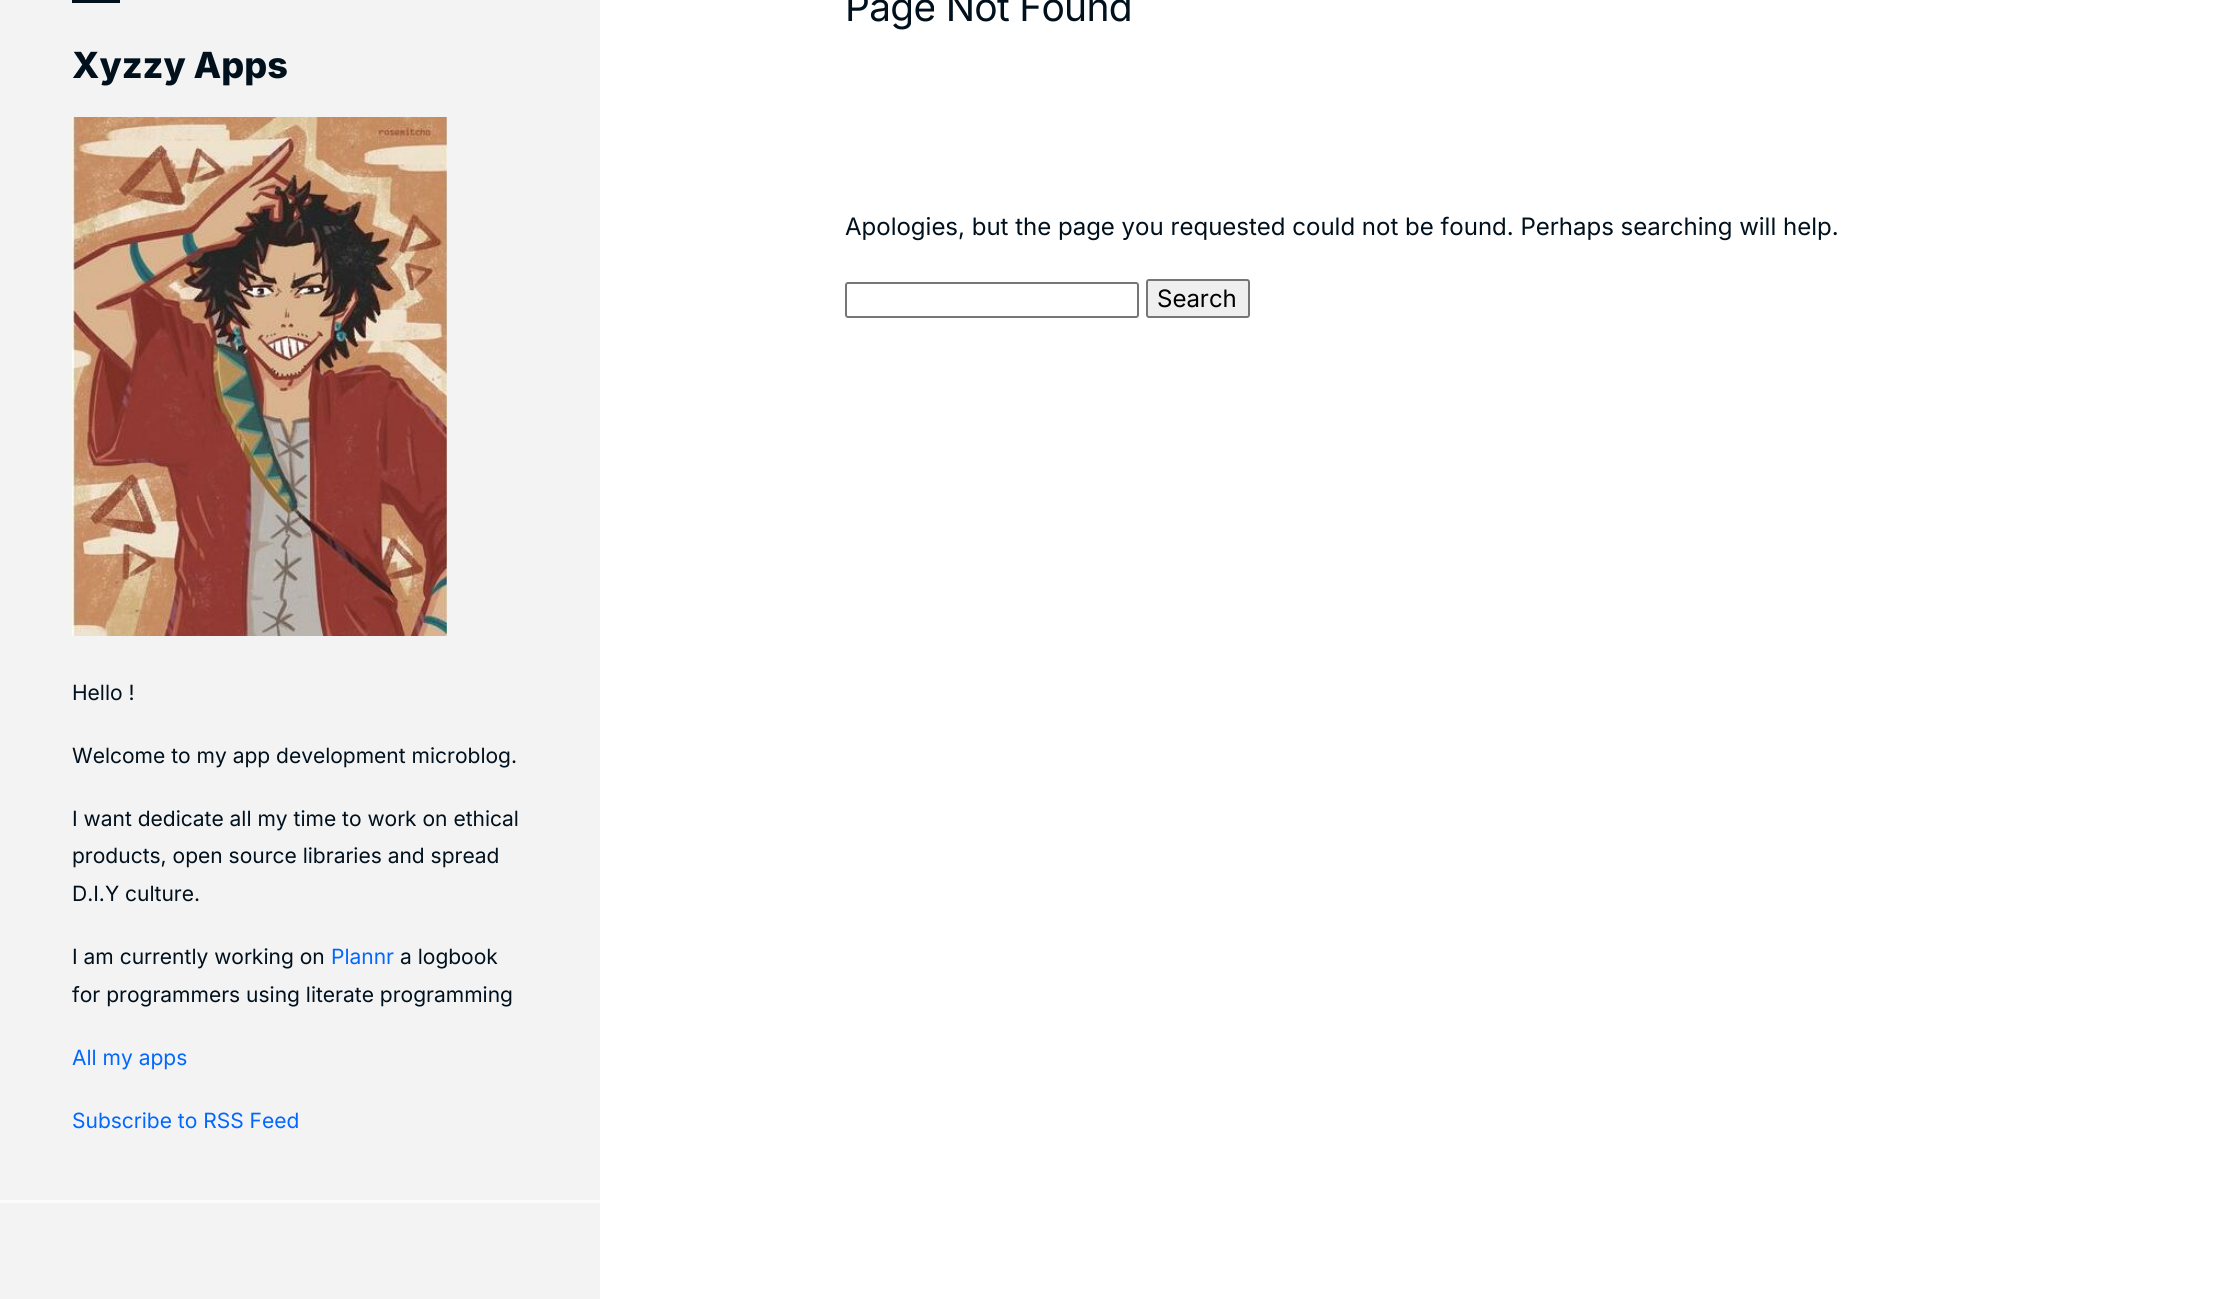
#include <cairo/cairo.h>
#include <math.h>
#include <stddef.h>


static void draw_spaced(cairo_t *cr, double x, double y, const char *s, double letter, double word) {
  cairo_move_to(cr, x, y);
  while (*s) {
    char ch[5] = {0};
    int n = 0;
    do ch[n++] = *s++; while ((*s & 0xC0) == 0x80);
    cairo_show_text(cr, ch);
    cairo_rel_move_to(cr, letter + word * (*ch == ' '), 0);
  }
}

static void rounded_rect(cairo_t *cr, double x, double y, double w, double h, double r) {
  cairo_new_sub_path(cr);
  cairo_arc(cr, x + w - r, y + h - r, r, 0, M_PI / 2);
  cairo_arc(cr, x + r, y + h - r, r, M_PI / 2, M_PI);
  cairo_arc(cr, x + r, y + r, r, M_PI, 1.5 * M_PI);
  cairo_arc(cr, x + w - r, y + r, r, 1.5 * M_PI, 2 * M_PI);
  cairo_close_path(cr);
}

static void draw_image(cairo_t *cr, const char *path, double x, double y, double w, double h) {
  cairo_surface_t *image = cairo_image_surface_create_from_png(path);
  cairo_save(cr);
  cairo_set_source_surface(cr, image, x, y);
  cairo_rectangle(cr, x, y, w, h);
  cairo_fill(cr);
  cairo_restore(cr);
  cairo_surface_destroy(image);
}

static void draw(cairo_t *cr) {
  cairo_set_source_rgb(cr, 1, 1, 1);
  cairo_paint(cr);
  cairo_set_source_rgb(cr, 243 / 255.0, 243 / 255.0, 243 / 255.0);
  cairo_rectangle(cr, 0, 0, 600, 1299);
  cairo_fill(cr);
  cairo_set_source_rgb(cr, 0, 16 / 255.0, 28 / 255.0);
  cairo_rectangle(cr, 72, 0, 48, 3);
  cairo_fill(cr);
  cairo_set_source_rgb(cr, 251 / 255.0, 251 / 255.0, 251 / 255.0);
  cairo_rectangle(cr, 0, 1200, 600, 3);
  cairo_fill(cr);
  draw_image(cr, "images/1.png", 72, 117, 375, 519);
  rounded_rect(cr, 846, 283, 292, 34, 2);
  cairo_set_source_rgb(cr, 118 / 255.0, 118 / 255.0, 118 / 255.0);
  cairo_stroke(cr);
  cairo_set_source_rgb(cr, 239 / 255.0, 239 / 255.0, 239 / 255.0);
  rounded_rect(cr, 1147, 280, 102, 37, 2);
  cairo_fill_preserve(cr);
  cairo_set_source_rgb(cr, 118 / 255.0, 118 / 255.0, 118 / 255.0);
  cairo_stroke(cr);
  cairo_select_font_face(cr, "Inter ExtraBold", CAIRO_FONT_SLANT_NORMAL, CAIRO_FONT_WEIGHT_NORMAL);
  cairo_set_font_size(cr, 36);
  cairo_set_source_rgb(cr, 0, 16 / 255.0, 28 / 255.0);
  cairo_move_to(cr, 72, 78);
  cairo_show_text(cr, "Xyzzy Apps");
  cairo_select_font_face(cr, "Inter", CAIRO_FONT_SLANT_NORMAL, CAIRO_FONT_WEIGHT_NORMAL);
  cairo_set_font_size(cr, 21);
  cairo_move_to(cr, 72, 700);
  cairo_show_text(cr, "Hello !");
  cairo_move_to(cr, 72, 763);
  cairo_show_text(cr, "Welcome to my app development microblog.");
  cairo_move_to(cr, 72, 826);
  cairo_show_text(cr, "I want dedicate all my time to work on ethical");
  cairo_move_to(cr, 72, 863);
  cairo_show_text(cr, "products, open source libraries and spread");
  cairo_move_to(cr, 72, 901);
  cairo_show_text(cr, "D.I.Y culture.");
  cairo_move_to(cr, 72, 964);
  cairo_show_text(cr, "I am currently working on");
  cairo_set_source_rgb(cr, 2 / 255.0, 103 / 255.0, 1);
  cairo_move_to(cr, 331, 964);
  cairo_show_text(cr, "Plannr");
  cairo_set_source_rgb(cr, 0, 16 / 255.0, 28 / 255.0);
  cairo_move_to(cr, 400, 964);
  cairo_show_text(cr, "a logbook");
  cairo_move_to(cr, 72, 1002);
  cairo_show_text(cr, "for programmers using literate programming");
  cairo_set_source_rgb(cr, 2 / 255.0, 103 / 255.0, 1);
  cairo_move_to(cr, 72, 1065);
  cairo_show_text(cr, "All my apps");
  cairo_move_to(cr, 72, 1128);
  cairo_show_text(cr, "Subscribe to RSS Feed");
  cairo_set_font_size(cr, 39);
  cairo_set_source_rgb(cr, 0, 16 / 255.0, 28 / 255.0);
  draw_spaced(cr, 845, 21, "Page Not Found", -0.75, 0);
  cairo_set_font_size(cr, 24);
  cairo_move_to(cr, 845, 235);
  cairo_show_text(cr, "Apologies, but the page you requested could not be found. Perhaps searching will help.");
  cairo_set_source_rgb(cr, 0, 0, 0);
  cairo_move_to(cr, 1157, 307);
  cairo_show_text(cr, "Search");
}

int main(void) {
  cairo_surface_t *surface = cairo_image_surface_create(CAIRO_FORMAT_RGB24, 2217, 1299);
  cairo_t *cr = cairo_create(surface);
  cairo_font_options_t *options = cairo_font_options_create();
  cairo_font_options_set_hint_metrics(options, CAIRO_HINT_METRICS_OFF);
  cairo_font_options_set_hint_style(options, CAIRO_HINT_STYLE_NONE);
  cairo_set_font_options(cr, options);
  cairo_set_miter_limit(cr, 4);
  draw(cr);
  cairo_surface_write_to_png(surface, "out.png");
  cairo_font_options_destroy(options);
  cairo_destroy(cr);
  cairo_surface_destroy(surface);
  return 0;
}
